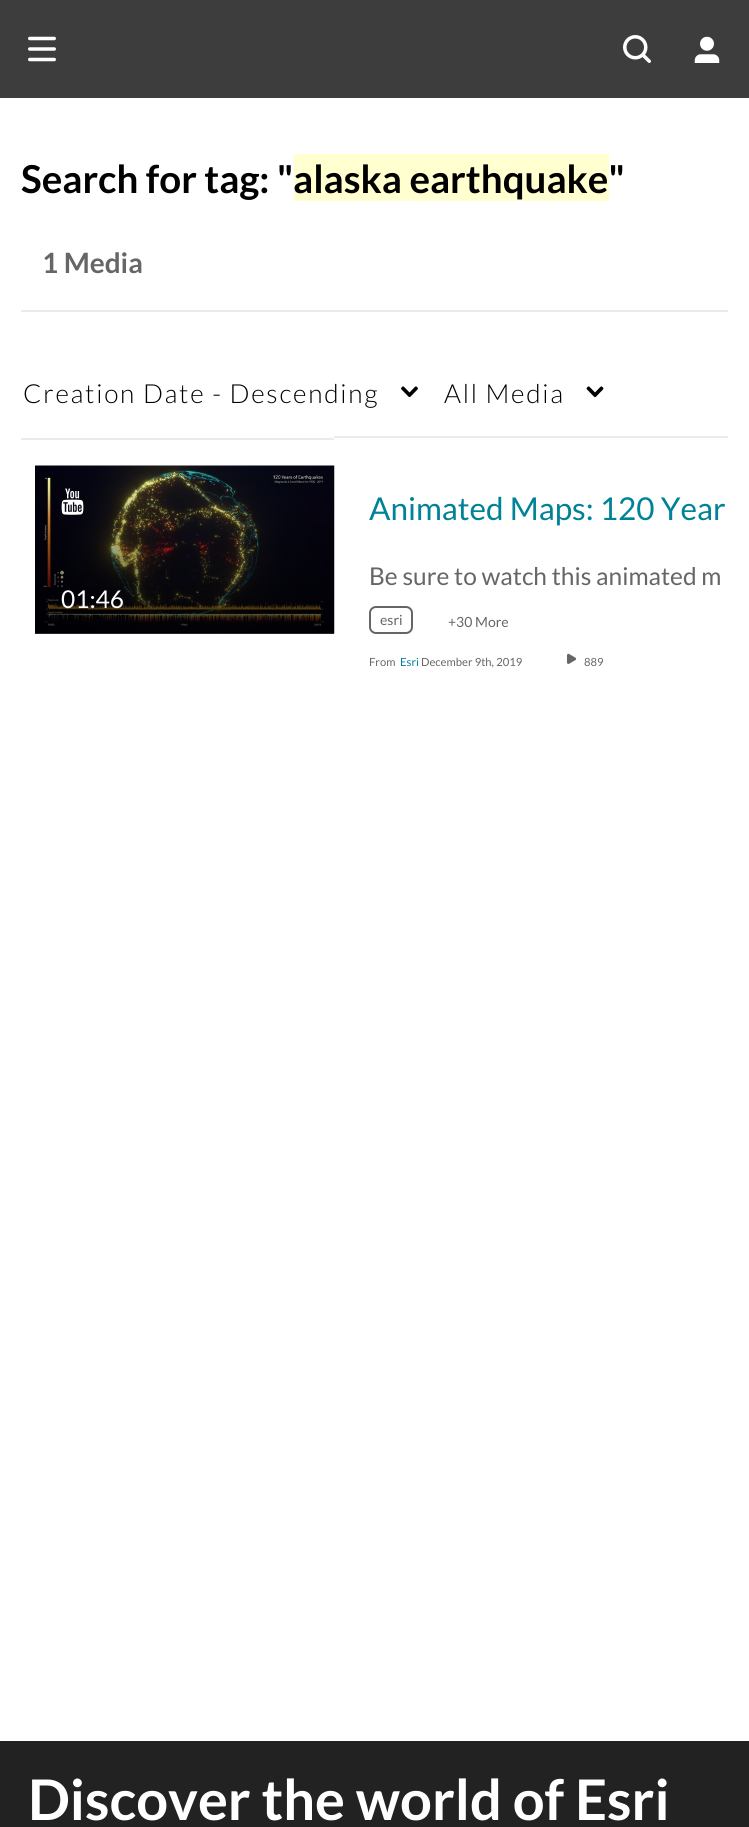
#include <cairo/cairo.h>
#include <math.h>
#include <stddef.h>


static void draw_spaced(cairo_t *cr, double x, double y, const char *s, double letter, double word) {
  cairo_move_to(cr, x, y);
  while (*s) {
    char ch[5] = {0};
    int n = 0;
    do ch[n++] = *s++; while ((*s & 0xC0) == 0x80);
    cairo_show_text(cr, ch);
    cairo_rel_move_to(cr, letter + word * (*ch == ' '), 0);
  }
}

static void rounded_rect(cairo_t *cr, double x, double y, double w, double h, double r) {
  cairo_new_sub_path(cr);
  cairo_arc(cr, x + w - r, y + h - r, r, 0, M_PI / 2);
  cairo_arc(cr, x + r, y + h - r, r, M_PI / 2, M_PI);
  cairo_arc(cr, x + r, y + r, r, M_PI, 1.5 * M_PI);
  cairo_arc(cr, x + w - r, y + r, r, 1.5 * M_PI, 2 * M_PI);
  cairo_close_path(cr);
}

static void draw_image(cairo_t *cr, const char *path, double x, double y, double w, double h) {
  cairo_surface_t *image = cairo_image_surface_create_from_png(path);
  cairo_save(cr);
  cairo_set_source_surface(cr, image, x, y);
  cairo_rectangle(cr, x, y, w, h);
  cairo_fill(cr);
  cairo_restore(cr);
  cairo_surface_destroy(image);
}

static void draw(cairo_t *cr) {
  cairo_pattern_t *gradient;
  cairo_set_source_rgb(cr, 1, 1, 1);
  cairo_paint(cr);
  cairo_set_source_rgb(cr, 61 / 255.0, 61 / 255.0, 61 / 255.0);
  cairo_rectangle(cr, 0, 0, 749, 98);
  cairo_fill(cr);
  draw_image(cr, "images/1.png", 28, 36, 28, 26);
  draw_image(cr, "images/2.png", 623, 35, 28, 28);
  draw_image(cr, "images/3.png", 694, 36, 26, 27);
  cairo_set_source_rgb(cr, 1, 1, 207 / 255.0);
  cairo_rectangle(cr, 294, 154, 315, 47);
  cairo_fill(cr);
  cairo_set_source_rgb(cr, 235 / 255.0, 235 / 255.0, 235 / 255.0);
  cairo_rectangle(cr, 21, 310, 707, 2);
  cairo_fill(cr);
  draw_image(cr, "images/4.png", 401, 386, 17, 12);
  draw_image(cr, "images/5.png", 586, 386, 18, 12);
  cairo_rectangle(cr, 21, 438, 313, 2);
  cairo_fill(cr);
  draw_image(cr, "images/6.png", 35, 465, 300, 169);
  gradient = cairo_pattern_create_linear(185, 466, 185, 634);
  cairo_pattern_add_color_stop_rgba(gradient, 0, 0, 0, 0, 0);
  cairo_pattern_add_color_stop_rgba(gradient, 1, 0, 0, 0, 0.7);
  cairo_set_source(cr, gradient);
  cairo_pattern_destroy(gradient);
  cairo_rectangle(cr, 35, 471, 299, 163);
  cairo_fill(cr);
  draw_image(cr, "images/7.png", 61, 488, 23, 27);
  cairo_set_source_rgb(cr, 235 / 255.0, 235 / 255.0, 235 / 255.0);
  cairo_rectangle(cr, 334, 436, 394, 2);
  cairo_fill(cr);
  rounded_rect(cr, 370, 607, 42, 26, 6);
  cairo_set_source_rgb(cr, 102 / 255.0, 102 / 255.0, 102 / 255.0);
  cairo_stroke(cr);
  draw_image(cr, "images/8.png", 567, 653, 10, 11);
  cairo_set_source_rgb(cr, 34 / 255.0, 34 / 255.0, 34 / 255.0);
  cairo_rectangle(cr, 0, 1741, 749, 86);
  cairo_fill(cr);
  cairo_select_font_face(cr, "Lato", CAIRO_FONT_SLANT_NORMAL, CAIRO_FONT_WEIGHT_BOLD);
  cairo_set_font_size(cr, 38.5);
  cairo_set_source_rgb(cr, 0, 0, 0);
  cairo_move_to(cr, 21, 193);
  cairo_show_text(cr, "Search for tag: \"");
  cairo_move_to(cr, 293, 193);
  cairo_show_text(cr, "alaska earthquake\"");
  cairo_set_font_size(cr, 28);
  cairo_set_source_rgb(cr, 102 / 255.0, 102 / 255.0, 102 / 255.0);
  cairo_move_to(cr, 42, 273);
  cairo_show_text(cr, "1 Media");
  cairo_select_font_face(cr, "Lato Light", CAIRO_FONT_SLANT_NORMAL, CAIRO_FONT_WEIGHT_NORMAL);
  cairo_set_font_size(cr, 26.25);
  cairo_set_source_rgb(cr, 0, 0, 0);
  draw_spaced(cr, 23, 403, "Creation Date - Descending", 1.75, 0);
  draw_spaced(cr, 444, 403, "All Media", 1.75, 0);
  cairo_select_font_face(cr, "Lato", CAIRO_FONT_SLANT_NORMAL, CAIRO_FONT_WEIGHT_NORMAL);
  cairo_set_font_size(cr, 24.5);
  cairo_set_source_rgb(cr, 1, 1, 1);
  cairo_move_to(cr, 61, 608);
  cairo_show_text(cr, "01:46");
  cairo_set_font_size(cr, 31.5);
  cairo_set_source_rgb(cr, 0, 130 / 255.0, 151 / 255.0);
  cairo_move_to(cr, 369, 520);
  cairo_show_text(cr, "Animated Maps: 120 Year");
  cairo_set_font_size(cr, 24.5);
  cairo_set_source_rgb(cr, 102 / 255.0, 102 / 255.0, 102 / 255.0);
  cairo_move_to(cr, 369, 585);
  cairo_show_text(cr, "Be sure to watch this animated m");
  cairo_set_font_size(cr, 14);
  cairo_move_to(cr, 380, 625);
  cairo_show_text(cr, "esri");
  cairo_move_to(cr, 448, 627);
  cairo_show_text(cr, "+30 More");
  cairo_set_font_size(cr, 11.25);
  cairo_move_to(cr, 369, 666);
  cairo_show_text(cr, "From");
  cairo_set_source_rgb(cr, 0, 130 / 255.0, 151 / 255.0);
  cairo_move_to(cr, 400, 666);
  cairo_show_text(cr, "Esri");
  cairo_set_source_rgb(cr, 102 / 255.0, 102 / 255.0, 102 / 255.0);
  cairo_move_to(cr, 421, 666);
  cairo_show_text(cr, "December 9th, 2019");
  cairo_move_to(cr, 584, 666);
  cairo_show_text(cr, "889");
  cairo_select_font_face(cr, "Lato", CAIRO_FONT_SLANT_NORMAL, CAIRO_FONT_WEIGHT_BOLD);
  cairo_set_font_size(cr, 56);
  cairo_set_source_rgb(cr, 1, 1, 1);
  cairo_move_to(cr, 28, 1820);
  cairo_show_text(cr, "Discover the world of Esri");
}

int main(void) {
  cairo_surface_t *surface = cairo_image_surface_create(CAIRO_FORMAT_RGB24, 749, 1827);
  cairo_t *cr = cairo_create(surface);
  cairo_font_options_t *options = cairo_font_options_create();
  cairo_font_options_set_hint_metrics(options, CAIRO_HINT_METRICS_OFF);
  cairo_font_options_set_hint_style(options, CAIRO_HINT_STYLE_NONE);
  cairo_set_font_options(cr, options);
  cairo_set_miter_limit(cr, 4);
  draw(cr);
  cairo_surface_write_to_png(surface, "out.png");
  cairo_font_options_destroy(options);
  cairo_destroy(cr);
  cairo_surface_destroy(surface);
  return 0;
}
